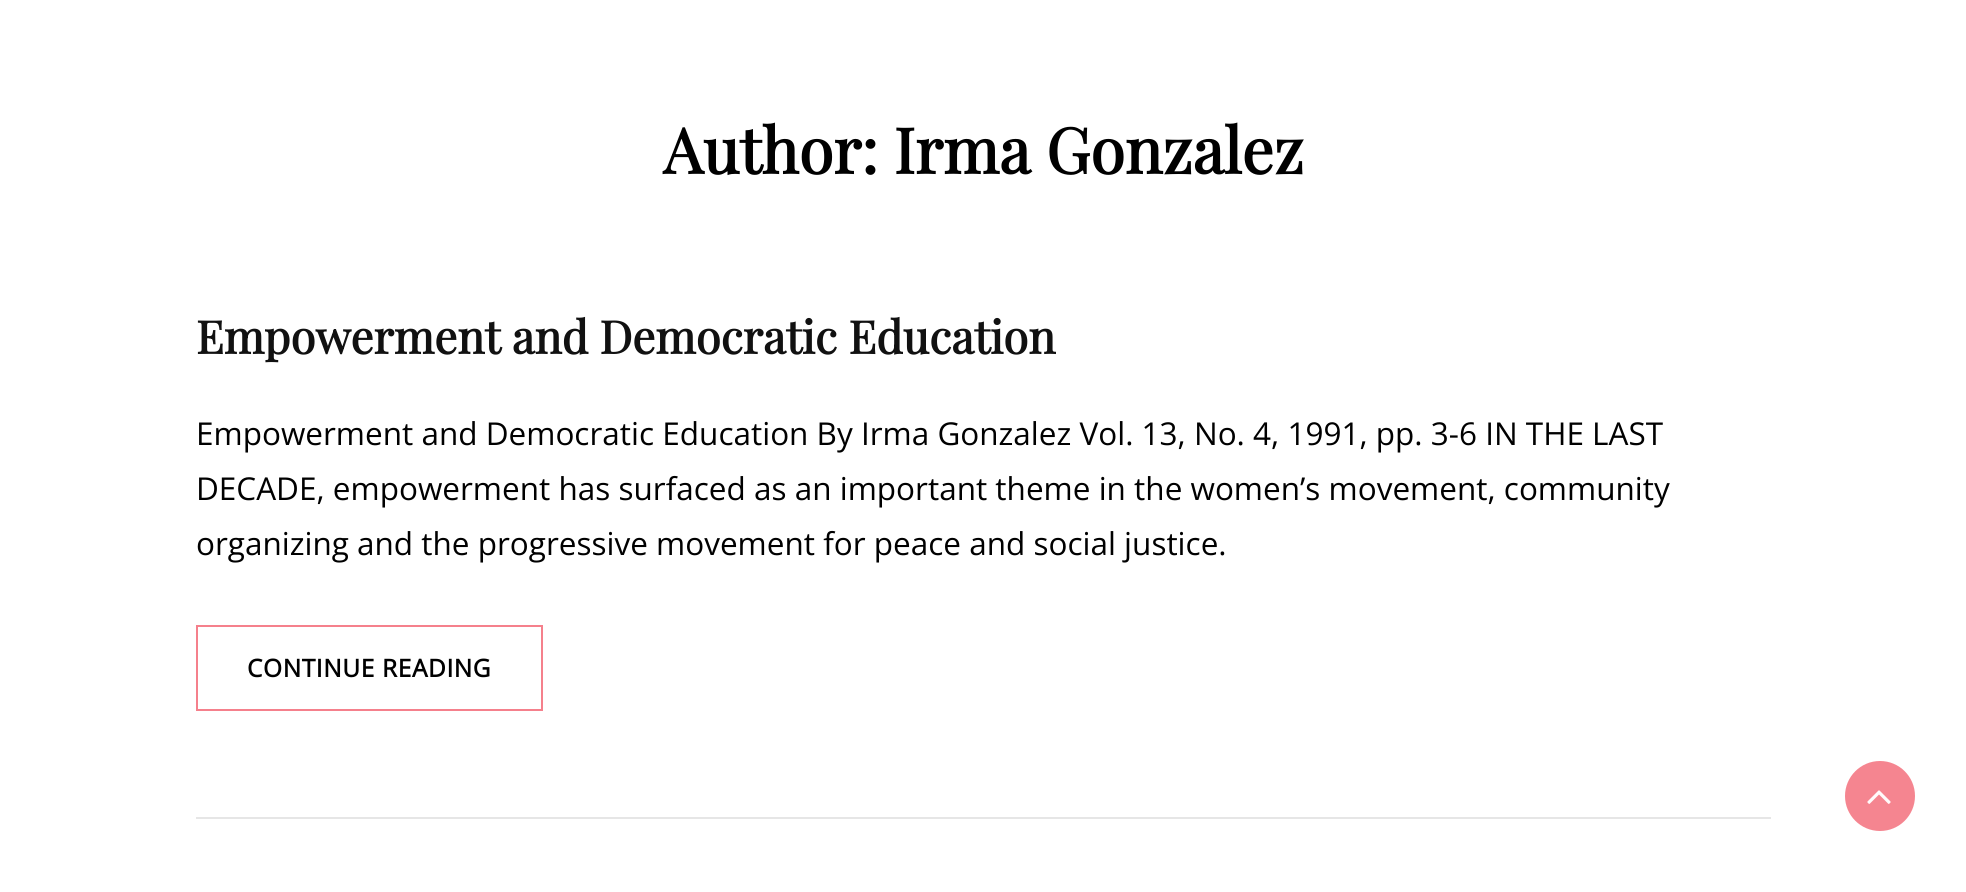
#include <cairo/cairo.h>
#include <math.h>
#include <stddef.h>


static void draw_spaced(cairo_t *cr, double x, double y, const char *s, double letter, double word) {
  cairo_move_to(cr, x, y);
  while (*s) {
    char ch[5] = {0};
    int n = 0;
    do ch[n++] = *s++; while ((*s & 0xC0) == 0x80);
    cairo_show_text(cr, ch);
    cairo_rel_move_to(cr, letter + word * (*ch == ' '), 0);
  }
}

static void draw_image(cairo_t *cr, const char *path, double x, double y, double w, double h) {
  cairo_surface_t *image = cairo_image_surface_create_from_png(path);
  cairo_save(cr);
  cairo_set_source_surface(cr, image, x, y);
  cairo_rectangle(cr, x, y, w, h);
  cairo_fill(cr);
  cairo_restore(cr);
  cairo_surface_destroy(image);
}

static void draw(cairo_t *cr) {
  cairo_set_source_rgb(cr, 1, 1, 1);
  cairo_paint(cr);
  cairo_set_source_rgb(cr, 230 / 255.0, 230 / 255.0, 230 / 255.0);
  cairo_rectangle(cr, 196, 817, 1575, 2);
  cairo_fill(cr);
  cairo_rectangle(cr, 197, 626, 345, 84);
  cairo_set_source_rgb(cr, 245 / 255.0, 128 / 255.0, 140 / 255.0);
  cairo_stroke(cr);
  cairo_set_source_rgb(cr, 245 / 255.0, 133 / 255.0, 144 / 255.0);
  cairo_arc(cr, 1880, 796, 35, 0, 2 * M_PI);
  cairo_fill(cr);
  draw_image(cr, "images/1.png", 1867, 790, 24, 14);
  cairo_select_font_face(cr, "Playfair Display", CAIRO_FONT_SLANT_NORMAL, CAIRO_FONT_WEIGHT_BOLD);
  cairo_set_font_size(cr, 63);
  cairo_set_source_rgb(cr, 0, 0, 0);
  cairo_move_to(cr, 663, 174);
  cairo_show_text(cr, "Author: Irma Gonzalez");
  cairo_set_font_size(cr, 45.5);
  cairo_set_source_rgb(cr, 17 / 255.0, 17 / 255.0, 17 / 255.0);
  cairo_move_to(cr, 196, 354);
  cairo_show_text(cr, "Empowerment and Democratic Education");
  cairo_select_font_face(cr, "Open Sans", CAIRO_FONT_SLANT_NORMAL, CAIRO_FONT_WEIGHT_NORMAL);
  cairo_set_font_size(cr, 31.5);
  cairo_set_source_rgb(cr, 0, 0, 0);
  cairo_move_to(cr, 196, 445);
  cairo_show_text(cr, "Empowerment and Democratic Education By Irma Gonzalez Vol. 13, No. 4, 1991, pp. 3-6 IN THE LAST");
  cairo_move_to(cr, 196, 500);
  cairo_show_text(cr, "DECADE, empowerment has surfaced as an important theme in the women’s movement, community");
  cairo_move_to(cr, 196, 555);
  cairo_show_text(cr, "organizing and the progressive movement for peace and social justice.");
  cairo_select_font_face(cr, "Open Sans", CAIRO_FONT_SLANT_NORMAL, CAIRO_FONT_WEIGHT_BOLD);
  cairo_set_font_size(cr, 24.5);
  draw_spaced(cr, 247, 677, "CONTINUE READING", 0.6, 0);
}

int main(void) {
  cairo_surface_t *surface = cairo_image_surface_create(CAIRO_FORMAT_RGB24, 1966, 892);
  cairo_t *cr = cairo_create(surface);
  cairo_font_options_t *options = cairo_font_options_create();
  cairo_font_options_set_hint_metrics(options, CAIRO_HINT_METRICS_OFF);
  cairo_font_options_set_hint_style(options, CAIRO_HINT_STYLE_NONE);
  cairo_set_font_options(cr, options);
  cairo_set_miter_limit(cr, 4);
  draw(cr);
  cairo_surface_write_to_png(surface, "out.png");
  cairo_font_options_destroy(options);
  cairo_destroy(cr);
  cairo_surface_destroy(surface);
  return 0;
}
